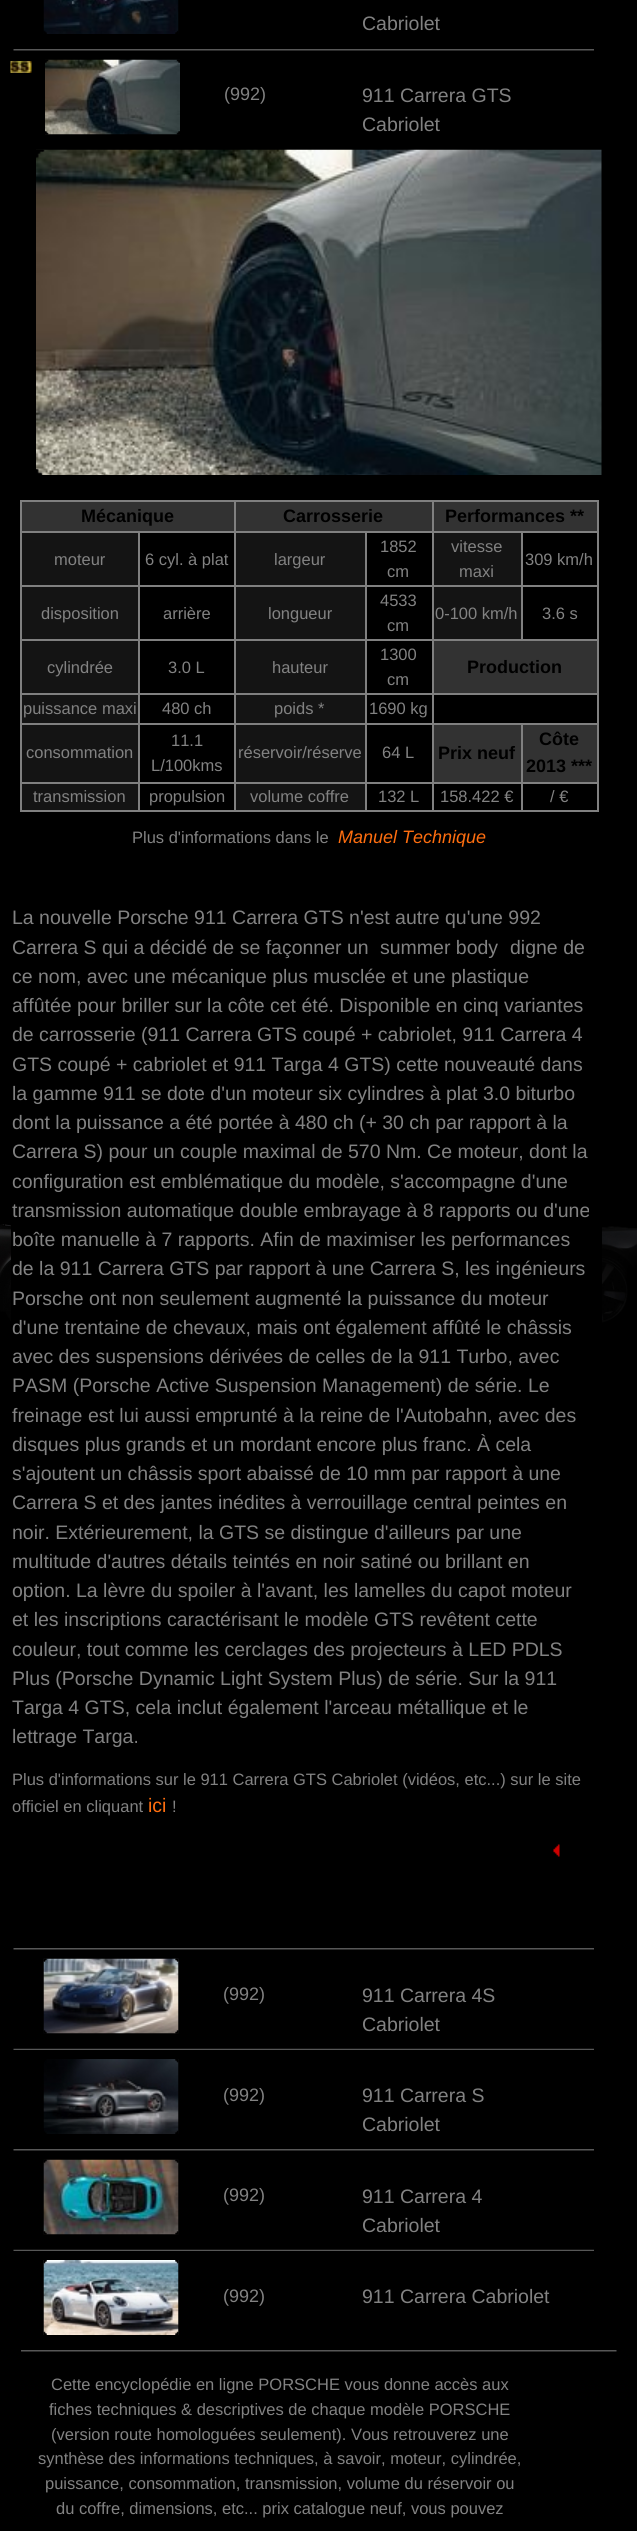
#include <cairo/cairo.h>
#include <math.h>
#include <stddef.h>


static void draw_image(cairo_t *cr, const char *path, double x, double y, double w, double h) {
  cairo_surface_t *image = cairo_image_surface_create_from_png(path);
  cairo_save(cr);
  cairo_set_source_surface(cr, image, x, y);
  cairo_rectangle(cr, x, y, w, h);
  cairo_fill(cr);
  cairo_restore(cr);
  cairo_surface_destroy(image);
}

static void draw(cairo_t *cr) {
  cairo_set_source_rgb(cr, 0, 0, 0);
  cairo_paint(cr);
  draw_image(cr, "images/1.png", 0, 1224, 637, 105);
  draw_image(cr, "images/2.png", 43, 0, 136, 34);
  draw_image(cr, "images/3.png", 45, 31, 133, 3);
  cairo_save(cr);
  cairo_rectangle(cr, 11, 0, 616, 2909);
  cairo_clip(cr);
  cairo_set_source_rgb(cr, 0, 0, 0);
  cairo_new_path(cr);
  cairo_move_to(cr, 6, 50);
  cairo_line_to(cr, 602, 50);
  cairo_line_to(cr, 602, 1939);
  cairo_curve_to(cr, 602, 1943.5, 598.5, 1947, 594, 1947);
  cairo_line_to(cr, 14, 1947);
  cairo_curve_to(cr, 9.5, 1947, 6, 1943.5, 6, 1939);
  cairo_close_path(cr);
  cairo_fill(cr);
  cairo_restore(cr);
  draw_image(cr, "images/4.png", 13, 49, 581, 2);
  draw_image(cr, "images/5.png", 10, 61, 22, 12);
  draw_image(cr, "images/6.png", 45, 59, 135, 76);
  draw_image(cr, "images/7.png", 45, 59, 135, 76);
  draw_image(cr, "images/8.png", 36, 149, 566, 326);
  draw_image(cr, "images/9.png", 36, 150, 9, 325);
  cairo_set_source_rgb(cr, 50 / 255.0, 50 / 255.0, 50 / 255.0);
  cairo_rectangle(cr, 22, 502, 212, 29);
  cairo_fill(cr);
  cairo_set_source_rgb(cr, 128 / 255.0, 128 / 255.0, 128 / 255.0);
  cairo_rectangle(cr, 432, 500, 167, 2);
  cairo_fill(cr);
  cairo_rectangle(cr, 521, 531, 78, 2);
  cairo_fill(cr);
  cairo_rectangle(cr, 521, 585, 78, 2);
  cairo_fill(cr);
  cairo_rectangle(cr, 432, 639, 167, 2);
  cairo_fill(cr);
  cairo_rectangle(cr, 521, 585, 2, 56);
  cairo_fill(cr);
  cairo_rectangle(cr, 432, 585, 90, 2);
  cairo_fill(cr);
  cairo_rectangle(cr, 521, 531, 2, 56);
  cairo_fill(cr);
  cairo_rectangle(cr, 432, 531, 90, 2);
  cairo_fill(cr);
  cairo_rectangle(cr, 432, 693, 167, 2);
  cairo_fill(cr);
  cairo_rectangle(cr, 521, 723, 78, 2);
  cairo_fill(cr);
  cairo_rectangle(cr, 521, 782, 78, 2);
  cairo_fill(cr);
  cairo_rectangle(cr, 597, 782, 2, 30);
  cairo_fill(cr);
  cairo_rectangle(cr, 521, 810, 78, 2);
  cairo_fill(cr);
  cairo_rectangle(cr, 521, 782, 2, 30);
  cairo_fill(cr);
  cairo_rectangle(cr, 432, 782, 90, 2);
  cairo_fill(cr);
  cairo_rectangle(cr, 521, 723, 2, 60);
  cairo_fill(cr);
  cairo_rectangle(cr, 432, 723, 90, 2);
  cairo_fill(cr);
  cairo_rectangle(cr, 432, 810, 90, 2);
  cairo_fill(cr);
  cairo_rectangle(cr, 432, 782, 2, 30);
  cairo_fill(cr);
  cairo_rectangle(cr, 365, 782, 69, 2);
  cairo_fill(cr);
  cairo_rectangle(cr, 432, 723, 2, 60);
  cairo_fill(cr);
  cairo_rectangle(cr, 365, 723, 69, 2);
  cairo_fill(cr);
  cairo_rectangle(cr, 432, 693, 2, 32);
  cairo_fill(cr);
  cairo_rectangle(cr, 365, 693, 69, 2);
  cairo_fill(cr);
  cairo_rectangle(cr, 432, 639, 2, 56);
  cairo_fill(cr);
  cairo_rectangle(cr, 365, 639, 69, 2);
  cairo_fill(cr);
  cairo_rectangle(cr, 432, 585, 2, 56);
  cairo_fill(cr);
  cairo_rectangle(cr, 365, 585, 69, 2);
  cairo_fill(cr);
  cairo_rectangle(cr, 432, 531, 2, 56);
  cairo_fill(cr);
  cairo_rectangle(cr, 365, 531, 69, 2);
  cairo_fill(cr);
  cairo_rectangle(cr, 432, 500, 2, 33);
  cairo_fill(cr);
  cairo_rectangle(cr, 234, 500, 200, 2);
  cairo_fill(cr);
  cairo_rectangle(cr, 365, 810, 69, 2);
  cairo_fill(cr);
  cairo_rectangle(cr, 365, 782, 2, 30);
  cairo_fill(cr);
  cairo_rectangle(cr, 234, 782, 132, 2);
  cairo_fill(cr);
  cairo_rectangle(cr, 365, 723, 2, 60);
  cairo_fill(cr);
  cairo_rectangle(cr, 234, 723, 132, 2);
  cairo_fill(cr);
  cairo_rectangle(cr, 365, 693, 2, 32);
  cairo_fill(cr);
  cairo_rectangle(cr, 234, 693, 132, 2);
  cairo_fill(cr);
  cairo_rectangle(cr, 365, 639, 2, 56);
  cairo_fill(cr);
  cairo_rectangle(cr, 234, 639, 132, 2);
  cairo_fill(cr);
  cairo_rectangle(cr, 365, 585, 2, 56);
  cairo_fill(cr);
  cairo_rectangle(cr, 234, 585, 132, 2);
  cairo_fill(cr);
  cairo_rectangle(cr, 365, 531, 2, 56);
  cairo_fill(cr);
  cairo_rectangle(cr, 234, 531, 132, 2);
  cairo_fill(cr);
  cairo_rectangle(cr, 234, 810, 132, 2);
  cairo_fill(cr);
  cairo_rectangle(cr, 234, 782, 2, 30);
  cairo_fill(cr);
  cairo_rectangle(cr, 138, 782, 98, 2);
  cairo_fill(cr);
  cairo_rectangle(cr, 234, 723, 2, 60);
  cairo_fill(cr);
  cairo_rectangle(cr, 138, 723, 98, 2);
  cairo_fill(cr);
  cairo_rectangle(cr, 234, 693, 2, 32);
  cairo_fill(cr);
  cairo_rectangle(cr, 138, 693, 98, 2);
  cairo_fill(cr);
  cairo_rectangle(cr, 234, 639, 2, 56);
  cairo_fill(cr);
  cairo_rectangle(cr, 138, 639, 98, 2);
  cairo_fill(cr);
  cairo_rectangle(cr, 234, 585, 2, 56);
  cairo_fill(cr);
  cairo_rectangle(cr, 138, 585, 98, 2);
  cairo_fill(cr);
  cairo_rectangle(cr, 234, 531, 2, 56);
  cairo_fill(cr);
  cairo_rectangle(cr, 138, 531, 98, 2);
  cairo_fill(cr);
  cairo_rectangle(cr, 234, 500, 2, 33);
  cairo_fill(cr);
  cairo_rectangle(cr, 20, 500, 216, 2);
  cairo_fill(cr);
  cairo_rectangle(cr, 138, 810, 98, 2);
  cairo_fill(cr);
  cairo_rectangle(cr, 138, 782, 2, 30);
  cairo_fill(cr);
  cairo_rectangle(cr, 20, 782, 120, 2);
  cairo_fill(cr);
  cairo_rectangle(cr, 138, 723, 2, 60);
  cairo_fill(cr);
  cairo_rectangle(cr, 20, 723, 120, 2);
  cairo_fill(cr);
  cairo_rectangle(cr, 138, 693, 2, 32);
  cairo_fill(cr);
  cairo_rectangle(cr, 20, 693, 120, 2);
  cairo_fill(cr);
  cairo_rectangle(cr, 138, 639, 2, 56);
  cairo_fill(cr);
  cairo_rectangle(cr, 20, 639, 120, 2);
  cairo_fill(cr);
  cairo_rectangle(cr, 138, 585, 2, 56);
  cairo_fill(cr);
  cairo_rectangle(cr, 20, 585, 120, 2);
  cairo_fill(cr);
  cairo_rectangle(cr, 138, 531, 2, 56);
  cairo_fill(cr);
  cairo_rectangle(cr, 20, 531, 120, 2);
  cairo_fill(cr);
  cairo_rectangle(cr, 20, 810, 120, 2);
  cairo_fill(cr);
  cairo_rectangle(cr, 20, 782, 2, 30);
  cairo_fill(cr);
  cairo_rectangle(cr, 20, 723, 2, 60);
  cairo_fill(cr);
  cairo_rectangle(cr, 20, 693, 2, 32);
  cairo_fill(cr);
  cairo_rectangle(cr, 20, 639, 2, 56);
  cairo_fill(cr);
  cairo_rectangle(cr, 20, 585, 2, 56);
  cairo_fill(cr);
  cairo_rectangle(cr, 20, 531, 2, 56);
  cairo_fill(cr);
  cairo_rectangle(cr, 20, 500, 2, 33);
  cairo_fill(cr);
  cairo_set_source_rgb(cr, 50 / 255.0, 50 / 255.0, 50 / 255.0);
  cairo_rectangle(cr, 236, 502, 196, 29);
  cairo_fill(cr);
  cairo_rectangle(cr, 434, 502, 163, 29);
  cairo_fill(cr);
  cairo_set_source_rgb(cr, 128 / 255.0, 128 / 255.0, 128 / 255.0);
  cairo_rectangle(cr, 597, 723, 2, 60);
  cairo_fill(cr);
  cairo_rectangle(cr, 597, 693, 2, 32);
  cairo_fill(cr);
  cairo_rectangle(cr, 597, 639, 2, 56);
  cairo_fill(cr);
  cairo_rectangle(cr, 597, 585, 2, 56);
  cairo_fill(cr);
  cairo_rectangle(cr, 597, 531, 2, 56);
  cairo_fill(cr);
  cairo_rectangle(cr, 597, 500, 2, 33);
  cairo_fill(cr);
  cairo_set_source_rgb(cr, 20 / 255.0, 20 / 255.0, 20 / 255.0);
  cairo_rectangle(cr, 22, 533, 116, 52);
  cairo_fill(cr);
  cairo_rectangle(cr, 236, 533, 129, 52);
  cairo_fill(cr);
  cairo_rectangle(cr, 434, 533, 87, 52);
  cairo_fill(cr);
  cairo_rectangle(cr, 22, 587, 116, 52);
  cairo_fill(cr);
  cairo_rectangle(cr, 236, 587, 129, 52);
  cairo_fill(cr);
  cairo_rectangle(cr, 434, 587, 87, 52);
  cairo_fill(cr);
  cairo_rectangle(cr, 22, 641, 116, 52);
  cairo_fill(cr);
  cairo_rectangle(cr, 236, 641, 129, 52);
  cairo_fill(cr);
  cairo_set_source_rgb(cr, 50 / 255.0, 50 / 255.0, 50 / 255.0);
  cairo_rectangle(cr, 434, 641, 163, 52);
  cairo_fill(cr);
  cairo_set_source_rgb(cr, 20 / 255.0, 20 / 255.0, 20 / 255.0);
  cairo_rectangle(cr, 22, 695, 116, 28);
  cairo_fill(cr);
  cairo_rectangle(cr, 236, 695, 129, 28);
  cairo_fill(cr);
  cairo_rectangle(cr, 22, 725, 116, 57);
  cairo_fill(cr);
  cairo_rectangle(cr, 236, 725, 129, 57);
  cairo_fill(cr);
  cairo_set_source_rgb(cr, 50 / 255.0, 50 / 255.0, 50 / 255.0);
  cairo_rectangle(cr, 434, 725, 87, 57);
  cairo_fill(cr);
  cairo_rectangle(cr, 523, 725, 74, 57);
  cairo_fill(cr);
  cairo_set_source_rgb(cr, 20 / 255.0, 20 / 255.0, 20 / 255.0);
  cairo_rectangle(cr, 22, 784, 116, 26);
  cairo_fill(cr);
  cairo_rectangle(cr, 236, 784, 129, 26);
  cairo_fill(cr);
  draw_image(cr, "images/10.png", 553, 1844, 7, 13);
  draw_image(cr, "images/4.png", 13, 1948, 581, 2);
  draw_image(cr, "images/11.png", 43, 1958, 136, 76);
  draw_image(cr, "images/12.png", 43, 1958, 136, 76);
  draw_image(cr, "images/13.png", 13, 2048, 581, 2);
  draw_image(cr, "images/14.png", 43, 2059, 136, 75);
  draw_image(cr, "images/15.png", 175, 2059, 3, 75);
  draw_image(cr, "images/4.png", 13, 2149, 581, 2);
  draw_image(cr, "images/16.png", 43, 2159, 136, 76);
  draw_image(cr, "images/17.png", 43, 2159, 136, 76);
  draw_image(cr, "images/13.png", 13, 2249, 581, 2);
  draw_image(cr, "images/18.png", 43, 2260, 136, 75);
  draw_image(cr, "images/19.png", 43, 2260, 136, 75);
  draw_image(cr, "images/20.png", 21, 2350, 596, 2);
  cairo_select_font_face(cr, "Liberation Sans", CAIRO_FONT_SLANT_NORMAL, CAIRO_FONT_WEIGHT_NORMAL);
  cairo_set_font_size(cr, 19.5);
  cairo_set_source_rgb(cr, 130 / 255.0, 130 / 255.0, 130 / 255.0);
  cairo_move_to(cr, 362, 30);
  cairo_show_text(cr, "Cabriolet");
  cairo_set_font_size(cr, 18);
  cairo_move_to(cr, 224, 100);
  cairo_show_text(cr, "(992)");
  cairo_set_font_size(cr, 19.5);
  cairo_move_to(cr, 362, 102);
  cairo_show_text(cr, "911 Carrera GTS");
  cairo_move_to(cr, 362, 131);
  cairo_show_text(cr, "Cabriolet");
  cairo_select_font_face(cr, "Liberation Sans", CAIRO_FONT_SLANT_NORMAL, CAIRO_FONT_WEIGHT_BOLD);
  cairo_set_font_size(cr, 18);
  cairo_set_source_rgb(cr, 0, 0, 0);
  cairo_move_to(cr, 81, 522);
  cairo_show_text(cr, "Mécanique");
  cairo_move_to(cr, 283, 522);
  cairo_show_text(cr, "Carrosserie");
  cairo_move_to(cr, 445, 522);
  cairo_show_text(cr, "Performances **");
  cairo_select_font_face(cr, "Liberation Sans", CAIRO_FONT_SLANT_NORMAL, CAIRO_FONT_WEIGHT_NORMAL);
  cairo_set_font_size(cr, 16.5);
  cairo_set_source_rgb(cr, 130 / 255.0, 130 / 255.0, 130 / 255.0);
  cairo_move_to(cr, 54, 565);
  cairo_show_text(cr, "moteur");
  cairo_move_to(cr, 145, 565);
  cairo_show_text(cr, "6 cyl. à plat");
  cairo_move_to(cr, 274, 565);
  cairo_show_text(cr, "largeur");
  cairo_move_to(cr, 380, 552);
  cairo_show_text(cr, "1852");
  cairo_move_to(cr, 387, 577);
  cairo_show_text(cr, "cm");
  cairo_move_to(cr, 451, 552);
  cairo_show_text(cr, "vitesse");
  cairo_move_to(cr, 459, 577);
  cairo_show_text(cr, "maxi");
  cairo_move_to(cr, 525, 565);
  cairo_show_text(cr, "309 km/h");
  cairo_move_to(cr, 41, 619);
  cairo_show_text(cr, "disposition");
  cairo_move_to(cr, 163, 619);
  cairo_show_text(cr, "arrière");
  cairo_move_to(cr, 268, 619);
  cairo_show_text(cr, "longueur");
  cairo_move_to(cr, 380, 606);
  cairo_show_text(cr, "4533");
  cairo_move_to(cr, 387, 631);
  cairo_show_text(cr, "cm");
  cairo_move_to(cr, 435, 619);
  cairo_show_text(cr, "0-100 km/h");
  cairo_move_to(cr, 542, 619);
  cairo_show_text(cr, "3.6 s");
  cairo_move_to(cr, 47, 673);
  cairo_show_text(cr, "cylindrée");
  cairo_move_to(cr, 168, 673);
  cairo_show_text(cr, "3.0 L");
  cairo_move_to(cr, 272, 673);
  cairo_show_text(cr, "hauteur");
  cairo_move_to(cr, 380, 660);
  cairo_show_text(cr, "1300");
  cairo_move_to(cr, 387, 685);
  cairo_show_text(cr, "cm");
  cairo_select_font_face(cr, "Liberation Sans", CAIRO_FONT_SLANT_NORMAL, CAIRO_FONT_WEIGHT_BOLD);
  cairo_set_font_size(cr, 18);
  cairo_set_source_rgb(cr, 0, 0, 0);
  cairo_move_to(cr, 467, 673);
  cairo_show_text(cr, "Production");
  cairo_select_font_face(cr, "Liberation Sans", CAIRO_FONT_SLANT_NORMAL, CAIRO_FONT_WEIGHT_NORMAL);
  cairo_set_font_size(cr, 16.5);
  cairo_set_source_rgb(cr, 130 / 255.0, 130 / 255.0, 130 / 255.0);
  cairo_move_to(cr, 23, 714);
  cairo_show_text(cr, "puissance maxi");
  cairo_move_to(cr, 162, 714);
  cairo_show_text(cr, "480 ch");
  cairo_move_to(cr, 274, 714);
  cairo_show_text(cr, "poids *");
  cairo_move_to(cr, 369, 714);
  cairo_show_text(cr, "1690 kg");
  cairo_move_to(cr, 26, 758);
  cairo_show_text(cr, "consommation");
  cairo_move_to(cr, 171, 746);
  cairo_show_text(cr, "11.1");
  cairo_move_to(cr, 151, 771);
  cairo_show_text(cr, "L/100kms");
  cairo_move_to(cr, 238, 758);
  cairo_show_text(cr, "réservoir/réserve");
  cairo_move_to(cr, 382, 758);
  cairo_show_text(cr, "64 L");
  cairo_select_font_face(cr, "Liberation Sans", CAIRO_FONT_SLANT_NORMAL, CAIRO_FONT_WEIGHT_BOLD);
  cairo_set_font_size(cr, 18);
  cairo_set_source_rgb(cr, 0, 0, 0);
  cairo_move_to(cr, 438, 759);
  cairo_show_text(cr, "Prix neuf");
  cairo_move_to(cr, 539, 745);
  cairo_show_text(cr, "Côte");
  cairo_move_to(cr, 526, 772);
  cairo_show_text(cr, "2013 ***");
  cairo_select_font_face(cr, "Liberation Sans", CAIRO_FONT_SLANT_NORMAL, CAIRO_FONT_WEIGHT_NORMAL);
  cairo_set_font_size(cr, 16.5);
  cairo_set_source_rgb(cr, 130 / 255.0, 130 / 255.0, 130 / 255.0);
  cairo_move_to(cr, 33, 802);
  cairo_show_text(cr, "transmission");
  cairo_move_to(cr, 149, 802);
  cairo_show_text(cr, "propulsion");
  cairo_move_to(cr, 250, 802);
  cairo_show_text(cr, "volume coffre");
  cairo_move_to(cr, 378, 802);
  cairo_show_text(cr, "132 L");
  cairo_move_to(cr, 440, 802);
  cairo_show_text(cr, "158.422 €");
  cairo_move_to(cr, 550, 802);
  cairo_show_text(cr, "/ €");
  cairo_move_to(cr, 132, 843);
  cairo_show_text(cr, "Plus d'informations dans le");
  cairo_select_font_face(cr, "Liberation Sans", CAIRO_FONT_SLANT_ITALIC, CAIRO_FONT_WEIGHT_NORMAL);
  cairo_set_font_size(cr, 18);
  cairo_set_source_rgb(cr, 1, 110 / 255.0, 15 / 255.0);
  cairo_move_to(cr, 338, 843);
  cairo_show_text(cr, "Manuel Technique");
  cairo_select_font_face(cr, "Liberation Sans", CAIRO_FONT_SLANT_NORMAL, CAIRO_FONT_WEIGHT_NORMAL);
  cairo_set_font_size(cr, 19.5);
  cairo_set_source_rgb(cr, 130 / 255.0, 130 / 255.0, 130 / 255.0);
  cairo_move_to(cr, 12, 924);
  cairo_show_text(cr, "La nouvelle Porsche 911 Carrera GTS n'est autre qu'une 992");
  cairo_move_to(cr, 12, 954);
  cairo_show_text(cr, "Carrera S qui a décidé de se façonner un");
  cairo_move_to(cr, 380, 954);
  cairo_show_text(cr, "summer body");
  cairo_move_to(cr, 510, 954);
  cairo_show_text(cr, "digne de");
  cairo_move_to(cr, 12, 983);
  cairo_show_text(cr, "ce nom, avec une mécanique plus musclée et une plastique");
  cairo_move_to(cr, 12, 1012);
  cairo_show_text(cr, "affûtée pour briller sur la côte cet été. Disponible en cinq variantes");
  cairo_move_to(cr, 12, 1041);
  cairo_show_text(cr, "de carrosserie (911 Carrera GTS coupé + cabriolet, 911 Carrera 4");
  cairo_move_to(cr, 12, 1071);
  cairo_show_text(cr, "GTS coupé + cabriolet et 911 Targa 4 GTS) cette nouveauté dans");
  cairo_move_to(cr, 12, 1100);
  cairo_show_text(cr, "la gamme 911 se dote d'un moteur six cylindres à plat 3.0 biturbo");
  cairo_move_to(cr, 12, 1129);
  cairo_show_text(cr, "dont la puissance a été portée à 480 ch (+ 30 ch par rapport à la");
  cairo_move_to(cr, 12, 1158);
  cairo_show_text(cr, "Carrera S) pour un couple maximal de 570 Nm. Ce moteur, dont la");
  cairo_move_to(cr, 12, 1188);
  cairo_show_text(cr, "configuration est emblématique du modèle, s'accompagne d'une");
  cairo_move_to(cr, 12, 1217);
  cairo_show_text(cr, "transmission automatique double embrayage à 8 rapports ou d'une");
  cairo_move_to(cr, 12, 1246);
  cairo_show_text(cr, "boîte manuelle à 7 rapports. Afin de maximiser les performances");
  cairo_move_to(cr, 12, 1275);
  cairo_show_text(cr, "de la 911 Carrera GTS par rapport à une Carrera S, les ingénieurs");
  cairo_move_to(cr, 12, 1305);
  cairo_show_text(cr, "Porsche ont non seulement augmenté la puissance du moteur");
  cairo_move_to(cr, 12, 1334);
  cairo_show_text(cr, "d'une trentaine de chevaux, mais ont également affûté le châssis");
  cairo_move_to(cr, 12, 1363);
  cairo_show_text(cr, "avec des suspensions dérivées de celles de la 911 Turbo, avec");
  cairo_move_to(cr, 12, 1392);
  cairo_show_text(cr, "PASM (Porsche Active Suspension Management) de série. Le");
  cairo_move_to(cr, 12, 1422);
  cairo_show_text(cr, "freinage est lui aussi emprunté à la reine de l'Autobahn, avec des");
  cairo_move_to(cr, 12, 1451);
  cairo_show_text(cr, "disques plus grands et un mordant encore plus franc. À cela");
  cairo_move_to(cr, 12, 1480);
  cairo_show_text(cr, "s'ajoutent un châssis sport abaissé de 10 mm par rapport à une");
  cairo_move_to(cr, 12, 1509);
  cairo_show_text(cr, "Carrera S et des jantes inédites à verrouillage central peintes en");
  cairo_move_to(cr, 12, 1539);
  cairo_show_text(cr, "noir. Extérieurement, la GTS se distingue d'ailleurs par une");
  cairo_move_to(cr, 12, 1568);
  cairo_show_text(cr, "multitude d'autres détails teintés en noir satiné ou brillant en");
  cairo_move_to(cr, 12, 1597);
  cairo_show_text(cr, "option. La lèvre du spoiler à l'avant, les lamelles du capot moteur");
  cairo_move_to(cr, 12, 1626);
  cairo_show_text(cr, "et les inscriptions caractérisant le modèle GTS revêtent cette");
  cairo_move_to(cr, 12, 1656);
  cairo_show_text(cr, "couleur, tout comme les cerclages des projecteurs à LED PDLS");
  cairo_move_to(cr, 12, 1685);
  cairo_show_text(cr, "Plus (Porsche Dynamic Light System Plus) de série. Sur la 911");
  cairo_move_to(cr, 12, 1714);
  cairo_show_text(cr, "Targa 4 GTS, cela inclut également l'arceau métallique et le");
  cairo_move_to(cr, 12, 1743);
  cairo_show_text(cr, "lettrage Targa.");
  cairo_set_font_size(cr, 16.5);
  cairo_move_to(cr, 12, 1785);
  cairo_show_text(cr, "Plus d'informations sur le 911 Carrera GTS Cabriolet (vidéos, etc...) sur le site");
  cairo_move_to(cr, 12, 1812);
  cairo_show_text(cr, "officiel en cliquant");
  cairo_set_font_size(cr, 19.5);
  cairo_set_source_rgb(cr, 1, 110 / 255.0, 15 / 255.0);
  cairo_move_to(cr, 148, 1812);
  cairo_show_text(cr, "ici");
  cairo_set_font_size(cr, 16.5);
  cairo_set_source_rgb(cr, 130 / 255.0, 130 / 255.0, 130 / 255.0);
  cairo_move_to(cr, 172, 1812);
  cairo_show_text(cr, "!");
  cairo_set_font_size(cr, 18);
  cairo_move_to(cr, 223, 2000);
  cairo_show_text(cr, "(992)");
  cairo_set_font_size(cr, 19.5);
  cairo_move_to(cr, 362, 2002);
  cairo_show_text(cr, "911 Carrera 4S");
  cairo_move_to(cr, 362, 2031);
  cairo_show_text(cr, "Cabriolet");
  cairo_set_font_size(cr, 18);
  cairo_move_to(cr, 223, 2101);
  cairo_show_text(cr, "(992)");
  cairo_set_font_size(cr, 19.5);
  cairo_move_to(cr, 362, 2102);
  cairo_show_text(cr, "911 Carrera S");
  cairo_move_to(cr, 362, 2131);
  cairo_show_text(cr, "Cabriolet");
  cairo_set_font_size(cr, 18);
  cairo_move_to(cr, 223, 2201);
  cairo_show_text(cr, "(992)");
  cairo_set_font_size(cr, 19.5);
  cairo_move_to(cr, 362, 2203);
  cairo_show_text(cr, "911 Carrera 4");
  cairo_move_to(cr, 362, 2232);
  cairo_show_text(cr, "Cabriolet");
  cairo_set_font_size(cr, 18);
  cairo_move_to(cr, 223, 2302);
  cairo_show_text(cr, "(992)");
  cairo_set_font_size(cr, 19.5);
  cairo_move_to(cr, 362, 2303);
  cairo_show_text(cr, "911 Carrera Cabriolet");
  cairo_set_font_size(cr, 16.5);
  cairo_move_to(cr, 51, 2390);
  cairo_show_text(cr, "Cette encyclopédie en ligne PORSCHE vous donne accès aux");
  cairo_move_to(cr, 49, 2415);
  cairo_show_text(cr, "fiches techniques & descriptives de chaque modèle PORSCHE");
  cairo_move_to(cr, 51, 2440);
  cairo_show_text(cr, "(version route homologuées seulement). Vous retrouverez une");
  cairo_move_to(cr, 38, 2464);
  cairo_show_text(cr, "synthèse des informations techniques, à savoir, moteur, cylindrée,");
  cairo_move_to(cr, 45, 2489);
  cairo_show_text(cr, "puissance, consommation, transmission, volume du réservoir ou");
  cairo_move_to(cr, 56, 2514);
  cairo_show_text(cr, "du coffre, dimensions, etc... prix catalogue neuf, vous pouvez");
}

int main(void) {
  cairo_surface_t *surface = cairo_image_surface_create(CAIRO_FORMAT_RGB24, 637, 2531);
  cairo_t *cr = cairo_create(surface);
  cairo_font_options_t *options = cairo_font_options_create();
  cairo_font_options_set_hint_metrics(options, CAIRO_HINT_METRICS_OFF);
  cairo_font_options_set_hint_style(options, CAIRO_HINT_STYLE_NONE);
  cairo_set_font_options(cr, options);
  cairo_set_miter_limit(cr, 4);
  draw(cr);
  cairo_surface_write_to_png(surface, "out.png");
  cairo_font_options_destroy(options);
  cairo_destroy(cr);
  cairo_surface_destroy(surface);
  return 0;
}
